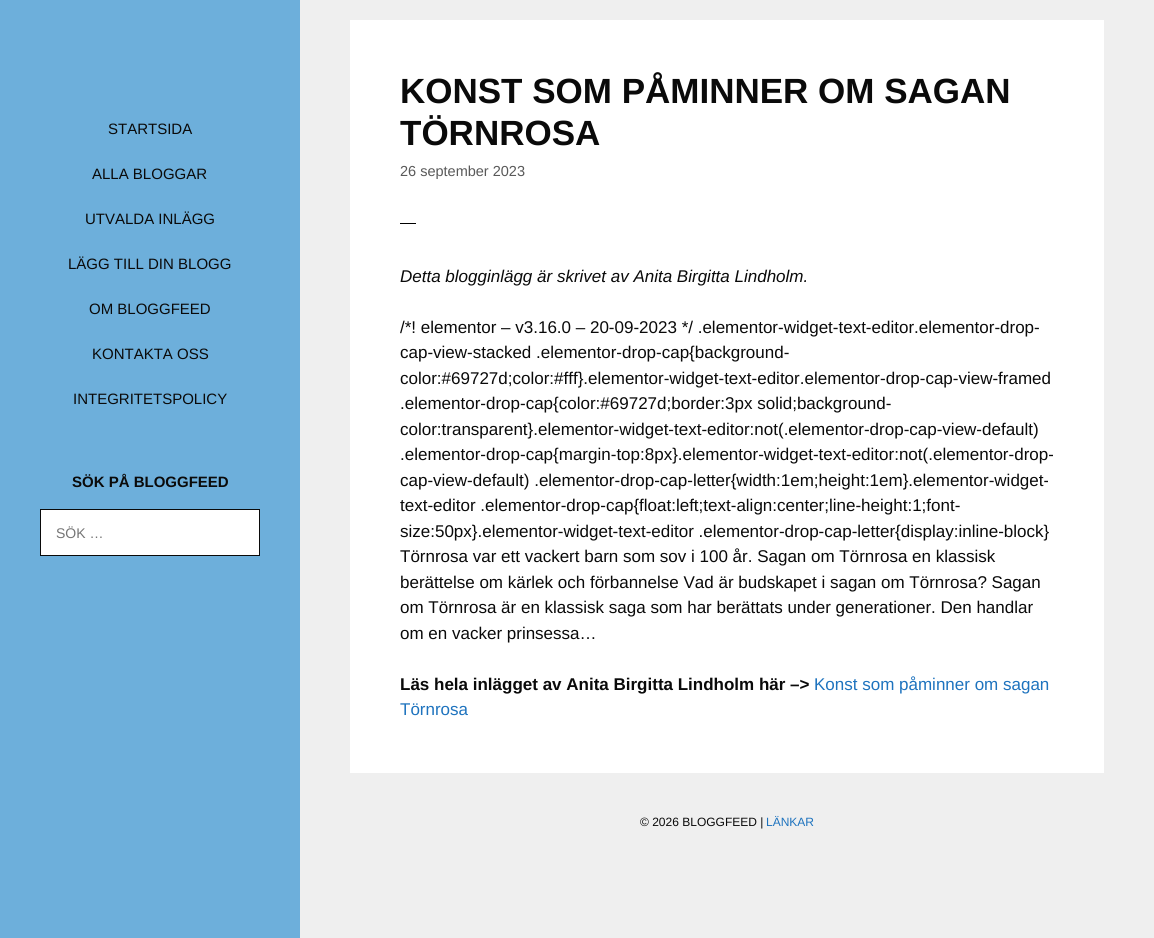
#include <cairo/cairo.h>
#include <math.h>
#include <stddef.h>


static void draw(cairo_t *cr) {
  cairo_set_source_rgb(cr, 239 / 255.0, 239 / 255.0, 239 / 255.0);
  cairo_paint(cr);
  cairo_set_source_rgb(cr, 109 / 255.0, 175 / 255.0, 219 / 255.0);
  cairo_rectangle(cr, 0, 0, 300, 938);
  cairo_fill(cr);
  cairo_set_source_rgb(cr, 1, 1, 1);
  cairo_rectangle(cr, 40.5, 509.5, 219, 46);
  cairo_fill_preserve(cr);
  cairo_set_source_rgb(cr, 10 / 255.0, 10 / 255.0, 10 / 255.0);
  cairo_set_line_width(cr, 1);
  cairo_stroke(cr);
  cairo_set_source_rgb(cr, 1, 1, 1);
  cairo_rectangle(cr, 350, 20, 754, 753);
  cairo_fill(cr);
  cairo_set_source_rgb(cr, 0, 0, 0);
  cairo_rectangle(cr, 400, 223, 16, 1);
  cairo_fill(cr);
  cairo_select_font_face(cr, "Arimo", CAIRO_FONT_SLANT_NORMAL, CAIRO_FONT_WEIGHT_NORMAL);
  cairo_set_font_size(cr, 15);
  cairo_set_source_rgb(cr, 10 / 255.0, 10 / 255.0, 10 / 255.0);
  cairo_move_to(cr, 108, 134);
  cairo_show_text(cr, "STARTSIDA");
  cairo_move_to(cr, 92, 179);
  cairo_show_text(cr, "ALLA BLOGGAR");
  cairo_move_to(cr, 85, 224);
  cairo_show_text(cr, "UTVALDA INLÄGG");
  cairo_move_to(cr, 68, 269);
  cairo_show_text(cr, "LÄGG TILL DIN BLOGG");
  cairo_move_to(cr, 89, 314);
  cairo_show_text(cr, "OM BLOGGFEED");
  cairo_move_to(cr, 92, 359);
  cairo_show_text(cr, "KONTAKTA OSS");
  cairo_move_to(cr, 73, 404);
  cairo_show_text(cr, "INTEGRITETSPOLICY");
  cairo_select_font_face(cr, "Arimo", CAIRO_FONT_SLANT_NORMAL, CAIRO_FONT_WEIGHT_BOLD);
  cairo_move_to(cr, 72, 487);
  cairo_show_text(cr, "SÖK PÅ BLOGGFEED");
  cairo_select_font_face(cr, "Arimo", CAIRO_FONT_SLANT_NORMAL, CAIRO_FONT_WEIGHT_NORMAL);
  cairo_set_font_size(cr, 14);
  cairo_set_source_rgb(cr, 117 / 255.0, 117 / 255.0, 117 / 255.0);
  cairo_move_to(cr, 56, 538);
  cairo_show_text(cr, "SÖK …");
  cairo_select_font_face(cr, "Arimo", CAIRO_FONT_SLANT_NORMAL, CAIRO_FONT_WEIGHT_BOLD);
  cairo_set_font_size(cr, 35);
  cairo_set_source_rgb(cr, 10 / 255.0, 10 / 255.0, 10 / 255.0);
  cairo_move_to(cr, 400, 103);
  cairo_show_text(cr, "KONST SOM PÅMINNER OM SAGAN");
  cairo_move_to(cr, 400, 145);
  cairo_show_text(cr, "TÖRNROSA");
  cairo_select_font_face(cr, "Arimo", CAIRO_FONT_SLANT_NORMAL, CAIRO_FONT_WEIGHT_NORMAL);
  cairo_set_font_size(cr, 14.5);
  cairo_set_source_rgb(cr, 89 / 255.0, 89 / 255.0, 89 / 255.0);
  cairo_move_to(cr, 400, 176);
  cairo_show_text(cr, "26 september 2023");
  cairo_select_font_face(cr, "Arimo", CAIRO_FONT_SLANT_ITALIC, CAIRO_FONT_WEIGHT_NORMAL);
  cairo_set_font_size(cr, 17);
  cairo_set_source_rgb(cr, 10 / 255.0, 10 / 255.0, 10 / 255.0);
  cairo_move_to(cr, 400, 282);
  cairo_show_text(cr, "Detta blogginlägg är skrivet av Anita Birgitta Lindholm.");
  cairo_select_font_face(cr, "Arimo", CAIRO_FONT_SLANT_NORMAL, CAIRO_FONT_WEIGHT_NORMAL);
  cairo_move_to(cr, 400, 333);
  cairo_show_text(cr, "/*! elementor – v3.16.0 – 20-09-2023 */ .elementor-widget-text-editor.elementor-drop-");
  cairo_move_to(cr, 400, 358);
  cairo_show_text(cr, "cap-view-stacked .elementor-drop-cap{background-");
  cairo_move_to(cr, 400, 384);
  cairo_show_text(cr, "color:#69727d;color:#fff}.elementor-widget-text-editor.elementor-drop-cap-view-framed");
  cairo_move_to(cr, 400, 409);
  cairo_show_text(cr, ".elementor-drop-cap{color:#69727d;border:3px solid;background-");
  cairo_move_to(cr, 400, 435);
  cairo_show_text(cr, "color:transparent}.elementor-widget-text-editor:not(.elementor-drop-cap-view-default)");
  cairo_move_to(cr, 400, 460);
  cairo_show_text(cr, ".elementor-drop-cap{margin-top:8px}.elementor-widget-text-editor:not(.elementor-drop-");
  cairo_move_to(cr, 400, 486);
  cairo_show_text(cr, "cap-view-default) .elementor-drop-cap-letter{width:1em;height:1em}.elementor-widget-");
  cairo_move_to(cr, 400, 511);
  cairo_show_text(cr, "text-editor .elementor-drop-cap{float:left;text-align:center;line-height:1;font-");
  cairo_move_to(cr, 400, 537);
  cairo_show_text(cr, "size:50px}.elementor-widget-text-editor .elementor-drop-cap-letter{display:inline-block}");
  cairo_move_to(cr, 400, 562);
  cairo_show_text(cr, "Törnrosa var ett vackert barn som sov i 100 år. Sagan om Törnrosa en klassisk");
  cairo_move_to(cr, 400, 588);
  cairo_show_text(cr, "berättelse om kärlek och förbannelse Vad är budskapet i sagan om Törnrosa? Sagan");
  cairo_move_to(cr, 400, 613);
  cairo_show_text(cr, "om Törnrosa är en klassisk saga som har berättats under generationer. Den handlar");
  cairo_move_to(cr, 400, 639);
  cairo_show_text(cr, "om en vacker prinsessa…");
  cairo_select_font_face(cr, "Arimo", CAIRO_FONT_SLANT_NORMAL, CAIRO_FONT_WEIGHT_BOLD);
  cairo_move_to(cr, 400, 690);
  cairo_show_text(cr, "Läs hela inlägget av Anita Birgitta Lindholm här –>");
  cairo_select_font_face(cr, "Arimo", CAIRO_FONT_SLANT_NORMAL, CAIRO_FONT_WEIGHT_NORMAL);
  cairo_set_source_rgb(cr, 30 / 255.0, 115 / 255.0, 190 / 255.0);
  cairo_move_to(cr, 814, 690);
  cairo_show_text(cr, "Konst som påminner om sagan");
  cairo_move_to(cr, 400, 715);
  cairo_show_text(cr, "Törnrosa");
  cairo_set_font_size(cr, 12);
  cairo_set_source_rgb(cr, 10 / 255.0, 10 / 255.0, 10 / 255.0);
  cairo_move_to(cr, 640, 826);
  cairo_show_text(cr, "© 2026 BLOGGFEED |");
  cairo_set_source_rgb(cr, 30 / 255.0, 115 / 255.0, 190 / 255.0);
  cairo_move_to(cr, 766, 826);
  cairo_show_text(cr, "LÄNKAR");
}

int main(void) {
  cairo_surface_t *surface = cairo_image_surface_create(CAIRO_FORMAT_RGB24, 1154, 938);
  cairo_t *cr = cairo_create(surface);
  cairo_font_options_t *options = cairo_font_options_create();
  cairo_font_options_set_hint_metrics(options, CAIRO_HINT_METRICS_OFF);
  cairo_font_options_set_hint_style(options, CAIRO_HINT_STYLE_NONE);
  cairo_set_font_options(cr, options);
  cairo_set_miter_limit(cr, 4);
  draw(cr);
  cairo_surface_write_to_png(surface, "out.png");
  cairo_font_options_destroy(options);
  cairo_destroy(cr);
  cairo_surface_destroy(surface);
  return 0;
}
